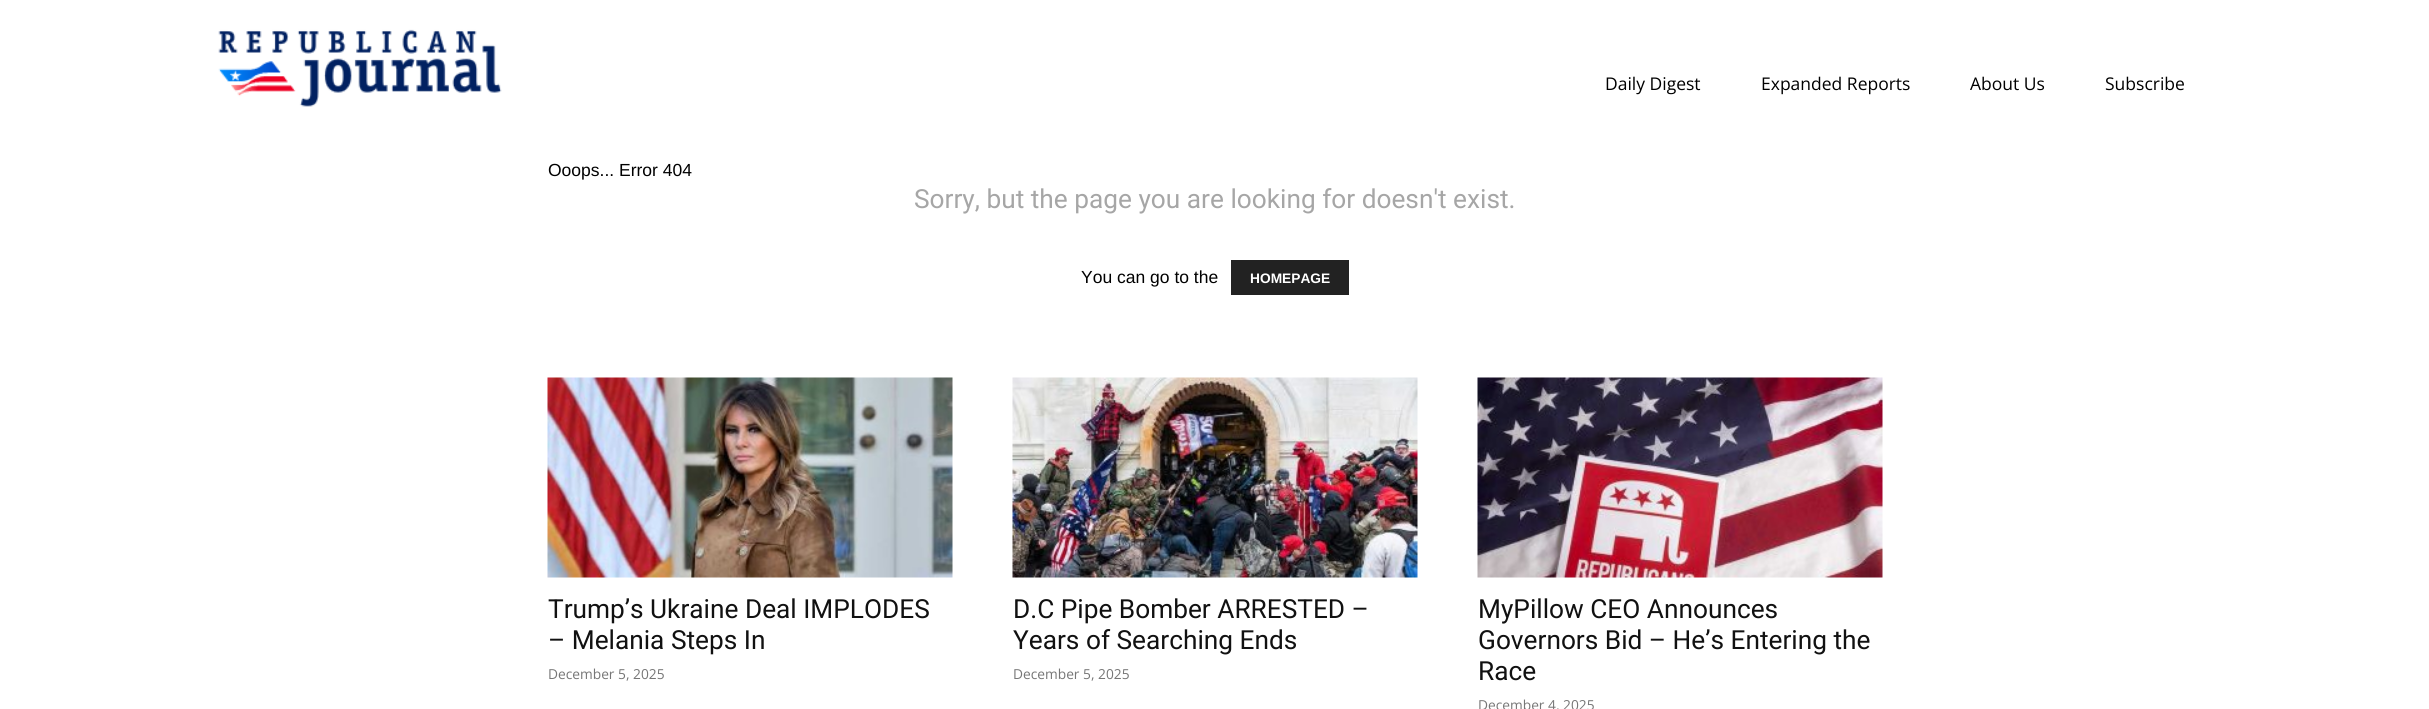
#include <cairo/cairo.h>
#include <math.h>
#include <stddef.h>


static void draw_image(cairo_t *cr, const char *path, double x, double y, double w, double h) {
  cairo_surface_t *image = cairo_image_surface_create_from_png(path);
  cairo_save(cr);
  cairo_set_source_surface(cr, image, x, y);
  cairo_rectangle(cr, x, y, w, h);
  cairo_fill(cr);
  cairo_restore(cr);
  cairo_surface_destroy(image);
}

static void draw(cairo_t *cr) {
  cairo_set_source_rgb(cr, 1, 1, 1);
  cairo_paint(cr);
  draw_image(cr, "images/1.png", 218, 29, 284, 78);
  cairo_set_source_rgb(cr, 34 / 255.0, 34 / 255.0, 34 / 255.0);
  cairo_rectangle(cr, 1231, 260, 118, 35);
  cairo_fill(cr);
  draw_image(cr, "images/2.png", 547, 377, 406, 201);
  draw_image(cr, "images/3.png", 1012, 377, 406, 201);
  draw_image(cr, "images/4.png", 1477, 377, 406, 201);
  cairo_select_font_face(cr, "Open Sans", CAIRO_FONT_SLANT_NORMAL, CAIRO_FONT_WEIGHT_NORMAL);
  cairo_set_font_size(cr, 17.5);
  cairo_set_source_rgb(cr, 0, 0, 0);
  cairo_move_to(cr, 1605, 90);
  cairo_show_text(cr, "Daily Digest");
  cairo_move_to(cr, 1761, 90);
  cairo_show_text(cr, "Expanded Reports");
  cairo_move_to(cr, 1970, 90);
  cairo_show_text(cr, "About Us");
  cairo_move_to(cr, 2105, 90);
  cairo_show_text(cr, "Subscribe");
  cairo_select_font_face(cr, "Liberation Sans", CAIRO_FONT_SLANT_NORMAL, CAIRO_FONT_WEIGHT_NORMAL);
  cairo_move_to(cr, 548, 176);
  cairo_show_text(cr, "Ooops... Error 404");
  cairo_select_font_face(cr, "Roboto", CAIRO_FONT_SLANT_NORMAL, CAIRO_FONT_WEIGHT_NORMAL);
  cairo_set_font_size(cr, 26.25);
  cairo_set_source_rgb(cr, 166 / 255.0, 166 / 255.0, 166 / 255.0);
  cairo_move_to(cr, 914, 208);
  cairo_show_text(cr, "Sorry, but the page you are looking for doesn't exist.");
  cairo_select_font_face(cr, "Liberation Sans", CAIRO_FONT_SLANT_NORMAL, CAIRO_FONT_WEIGHT_NORMAL);
  cairo_set_font_size(cr, 17.5);
  cairo_set_source_rgb(cr, 0, 0, 0);
  cairo_move_to(cr, 1081, 283);
  cairo_show_text(cr, "You can go to the");
  cairo_select_font_face(cr, "Liberation Sans", CAIRO_FONT_SLANT_NORMAL, CAIRO_FONT_WEIGHT_BOLD);
  cairo_set_font_size(cr, 13.75);
  cairo_set_source_rgb(cr, 1, 1, 1);
  cairo_move_to(cr, 1250, 283);
  cairo_show_text(cr, "HOMEPAGE");
  cairo_select_font_face(cr, "Roboto", CAIRO_FONT_SLANT_NORMAL, CAIRO_FONT_WEIGHT_NORMAL);
  cairo_set_font_size(cr, 26.25);
  cairo_set_source_rgb(cr, 17 / 255.0, 17 / 255.0, 17 / 255.0);
  cairo_move_to(cr, 548, 618);
  cairo_show_text(cr, "Trump’s Ukraine Deal IMPLODES");
  cairo_move_to(cr, 548, 649);
  cairo_show_text(cr, "– Melania Steps In");
  cairo_select_font_face(cr, "Open Sans", CAIRO_FONT_SLANT_NORMAL, CAIRO_FONT_WEIGHT_NORMAL);
  cairo_set_font_size(cr, 13.75);
  cairo_set_source_rgb(cr, 118 / 255.0, 118 / 255.0, 118 / 255.0);
  cairo_move_to(cr, 548, 679);
  cairo_show_text(cr, "December 5, 2025");
  cairo_select_font_face(cr, "Roboto", CAIRO_FONT_SLANT_NORMAL, CAIRO_FONT_WEIGHT_NORMAL);
  cairo_set_font_size(cr, 26.25);
  cairo_set_source_rgb(cr, 17 / 255.0, 17 / 255.0, 17 / 255.0);
  cairo_move_to(cr, 1013, 618);
  cairo_show_text(cr, "D.C Pipe Bomber ARRESTED –");
  cairo_move_to(cr, 1013, 649);
  cairo_show_text(cr, "Years of Searching Ends");
  cairo_select_font_face(cr, "Open Sans", CAIRO_FONT_SLANT_NORMAL, CAIRO_FONT_WEIGHT_NORMAL);
  cairo_set_font_size(cr, 13.75);
  cairo_set_source_rgb(cr, 118 / 255.0, 118 / 255.0, 118 / 255.0);
  cairo_move_to(cr, 1013, 679);
  cairo_show_text(cr, "December 5, 2025");
  cairo_select_font_face(cr, "Roboto", CAIRO_FONT_SLANT_NORMAL, CAIRO_FONT_WEIGHT_NORMAL);
  cairo_set_font_size(cr, 26.25);
  cairo_set_source_rgb(cr, 17 / 255.0, 17 / 255.0, 17 / 255.0);
  cairo_move_to(cr, 1478, 618);
  cairo_show_text(cr, "MyPillow CEO Announces");
  cairo_move_to(cr, 1478, 649);
  cairo_show_text(cr, "Governors Bid – He’s Entering the");
  cairo_move_to(cr, 1478, 680);
  cairo_show_text(cr, "Race");
  cairo_select_font_face(cr, "Open Sans", CAIRO_FONT_SLANT_NORMAL, CAIRO_FONT_WEIGHT_NORMAL);
  cairo_set_font_size(cr, 13.75);
  cairo_set_source_rgb(cr, 118 / 255.0, 118 / 255.0, 118 / 255.0);
  cairo_move_to(cr, 1478, 710);
  cairo_show_text(cr, "December 4, 2025");
}

int main(void) {
  cairo_surface_t *surface = cairo_image_surface_create(CAIRO_FORMAT_RGB24, 2429, 709);
  cairo_t *cr = cairo_create(surface);
  cairo_font_options_t *options = cairo_font_options_create();
  cairo_font_options_set_hint_metrics(options, CAIRO_HINT_METRICS_OFF);
  cairo_font_options_set_hint_style(options, CAIRO_HINT_STYLE_NONE);
  cairo_set_font_options(cr, options);
  cairo_set_miter_limit(cr, 4);
  draw(cr);
  cairo_surface_write_to_png(surface, "out.png");
  cairo_font_options_destroy(options);
  cairo_destroy(cr);
  cairo_surface_destroy(surface);
  return 0;
}
